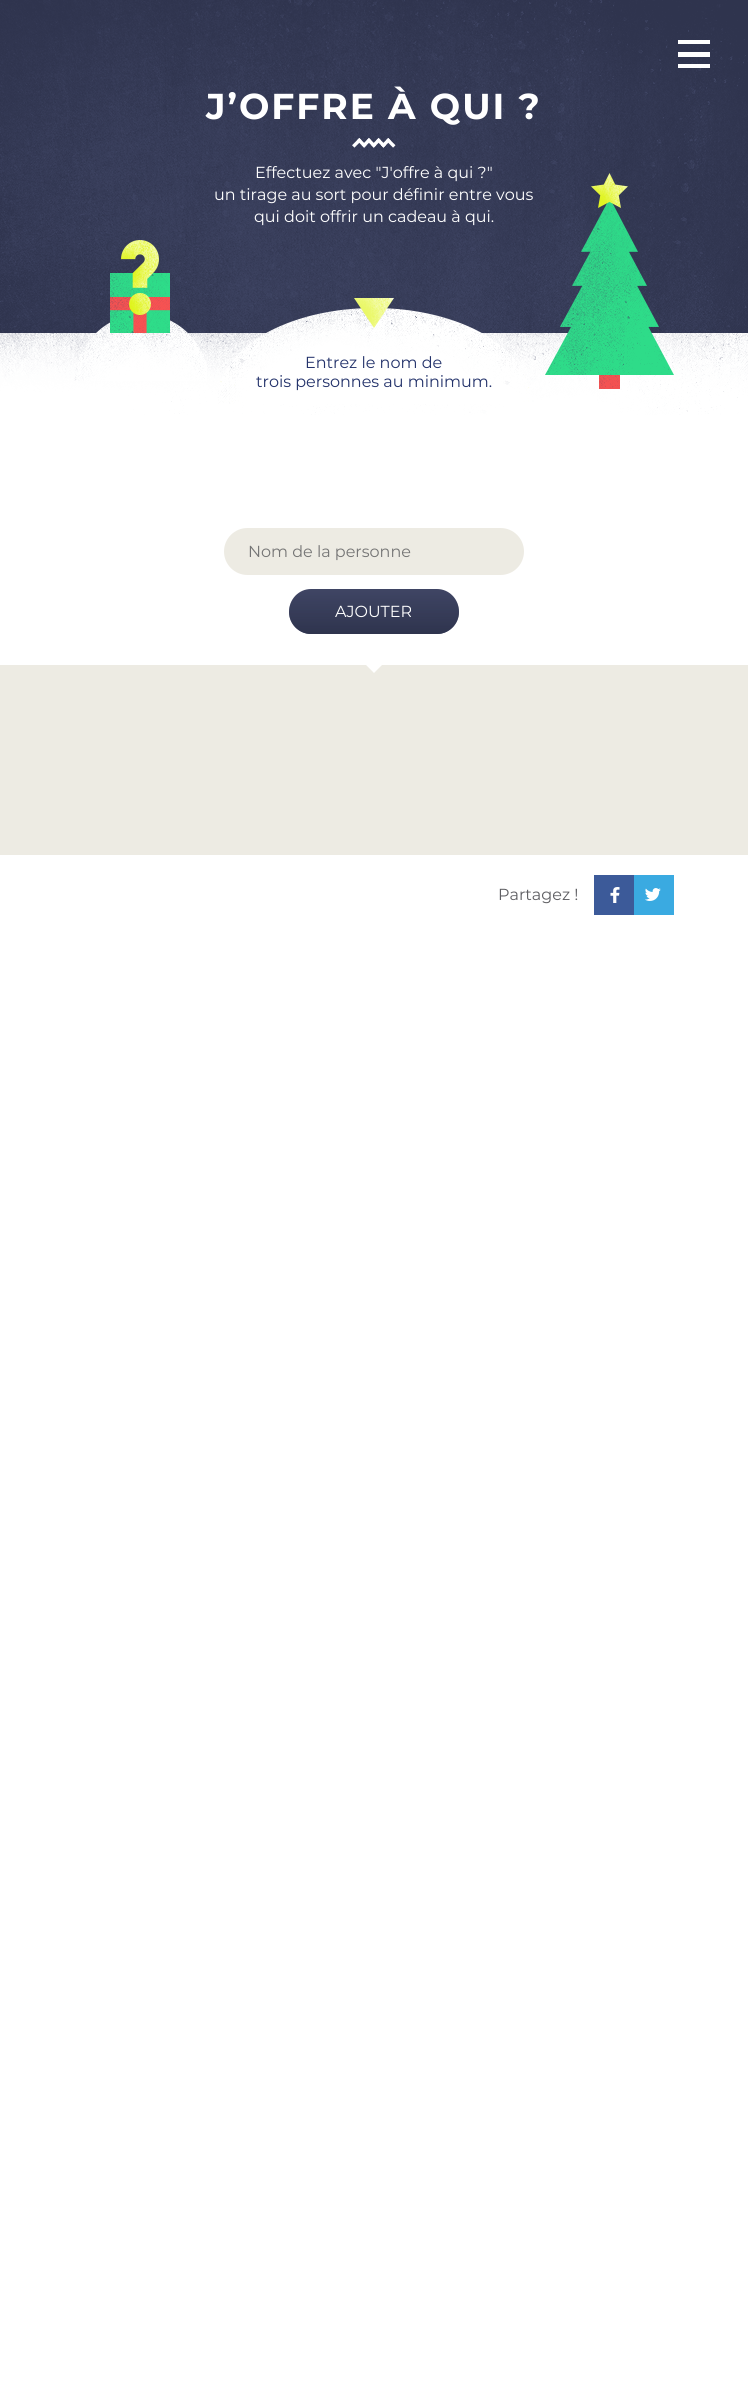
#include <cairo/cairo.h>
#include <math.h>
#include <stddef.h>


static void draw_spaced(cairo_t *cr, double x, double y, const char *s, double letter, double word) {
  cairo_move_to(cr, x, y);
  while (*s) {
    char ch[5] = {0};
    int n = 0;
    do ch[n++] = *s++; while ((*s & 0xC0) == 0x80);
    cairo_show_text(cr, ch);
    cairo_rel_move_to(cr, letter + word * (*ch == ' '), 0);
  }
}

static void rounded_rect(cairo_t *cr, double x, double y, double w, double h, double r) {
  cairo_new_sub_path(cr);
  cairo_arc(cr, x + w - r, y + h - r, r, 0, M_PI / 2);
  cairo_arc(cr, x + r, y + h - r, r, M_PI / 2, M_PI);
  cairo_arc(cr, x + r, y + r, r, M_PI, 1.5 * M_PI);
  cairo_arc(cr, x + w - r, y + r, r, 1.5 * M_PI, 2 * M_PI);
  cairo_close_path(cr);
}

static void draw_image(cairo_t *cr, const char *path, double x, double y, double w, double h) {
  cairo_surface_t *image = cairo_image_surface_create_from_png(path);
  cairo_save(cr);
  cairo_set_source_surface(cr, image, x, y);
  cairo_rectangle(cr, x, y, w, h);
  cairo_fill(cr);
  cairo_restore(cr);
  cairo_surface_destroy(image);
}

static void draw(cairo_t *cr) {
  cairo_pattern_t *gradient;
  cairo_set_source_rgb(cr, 1, 1, 1);
  cairo_paint(cr);
  draw_image(cr, "images/1.png", 0, 0, 748, 333);
  cairo_set_source_rgb(cr, 1, 1, 1);
  cairo_rectangle(cr, 678, 40, 32, 4);
  cairo_fill(cr);
  cairo_rectangle(cr, 678, 52, 32, 5);
  cairo_fill(cr);
  cairo_rectangle(cr, 678, 64, 32, 4);
  cairo_fill(cr);
  draw_image(cr, "images/2.png", 352, 138, 44, 10);
  draw_image(cr, "images/3.png", 0, 333, 748, 82);
  draw_image(cr, "images/4.png", 74, 240, 133, 141);
  draw_image(cr, "images/5.png", 218, 298, 311, 106);
  draw_image(cr, "images/6.png", 545, 173, 129, 216);
  cairo_set_source_rgb(cr, 237 / 255.0, 235 / 255.0, 227 / 255.0);
  rounded_rect(cr, 224, 528, 300, 47, 23.5);
  cairo_fill(cr);
  cairo_set_source_rgb(cr, 63 / 255.0, 69 / 255.0, 100 / 255.0);
  cairo_new_path(cr);
  cairo_move_to(cr, 311, 589);
  cairo_line_to(cr, 437, 589);
  cairo_curve_to(cr, 449, 589, 459, 599, 459, 612);
  cairo_curve_to(cr, 459, 624, 449, 634, 437, 634);
  cairo_line_to(cr, 311, 634);
  cairo_curve_to(cr, 299, 634, 289, 624, 289, 612);
  cairo_curve_to(cr, 289, 599, 299, 589, 311, 589);
  cairo_close_path(cr);
  cairo_fill(cr);
  gradient = cairo_pattern_create_linear(374, 634, 374, 589);
  cairo_pattern_add_color_stop_rgba(gradient, 0, 47 / 255.0, 52 / 255.0, 78 / 255.0, 1);
  cairo_pattern_add_color_stop_rgba(gradient, 1, 47 / 255.0, 52 / 255.0, 78 / 255.0, 0);
  cairo_set_source(cr, gradient);
  cairo_pattern_destroy(gradient);
  cairo_new_path(cr);
  cairo_move_to(cr, 311, 589);
  cairo_line_to(cr, 437, 589);
  cairo_curve_to(cr, 449, 589, 459, 599, 459, 612);
  cairo_curve_to(cr, 459, 624, 449, 634, 437, 634);
  cairo_line_to(cr, 311, 634);
  cairo_curve_to(cr, 299, 634, 289, 624, 289, 612);
  cairo_curve_to(cr, 289, 599, 299, 589, 311, 589);
  cairo_close_path(cr);
  cairo_fill(cr);
  cairo_set_source_rgb(cr, 237 / 255.0, 235 / 255.0, 227 / 255.0);
  cairo_rectangle(cr, 0, 665, 748, 190);
  cairo_fill(cr);
  cairo_set_source_rgb(cr, 1, 1, 1);
  cairo_new_path(cr);
  cairo_move_to(cr, 366, 665);
  cairo_line_to(cr, 382, 665);
  cairo_line_to(cr, 374, 673);
  cairo_close_path(cr);
  cairo_fill(cr);
  cairo_set_source_rgb(cr, 60 / 255.0, 90 / 255.0, 153 / 255.0);
  cairo_rectangle(cr, 594, 875, 40, 40);
  cairo_fill(cr);
  draw_image(cr, "images/7.png", 610, 887, 10, 16);
  cairo_set_source_rgb(cr, 58 / 255.0, 170 / 255.0, 225 / 255.0);
  cairo_rectangle(cr, 634, 875, 40, 40);
  cairo_fill(cr);
  draw_image(cr, "images/8.png", 645, 888, 16, 13);
  cairo_select_font_face(cr, "Montserrat", CAIRO_FONT_SLANT_NORMAL, CAIRO_FONT_WEIGHT_BOLD);
  cairo_set_font_size(cr, 36);
  cairo_set_source_rgb(cr, 1, 1, 1);
  draw_spaced(cr, 206, 119, "J’OFFRE À QUI ?", 2, 0);
  cairo_select_font_face(cr, "Montserrat", CAIRO_FONT_SLANT_NORMAL, CAIRO_FONT_WEIGHT_NORMAL);
  cairo_set_font_size(cr, 16);
  cairo_move_to(cr, 255, 178);
  cairo_show_text(cr, "Effectuez avec \"J'offre à qui ?\"");
  cairo_move_to(cr, 214, 200);
  cairo_show_text(cr, "un tirage au sort pour définir entre vous");
  cairo_move_to(cr, 254, 222);
  cairo_show_text(cr, "qui doit offrir un cadeau à qui.");
  cairo_set_source_rgb(cr, 36 / 255.0, 51 / 255.0, 107 / 255.0);
  cairo_move_to(cr, 305, 368);
  cairo_show_text(cr, "Entrez le nom de");
  cairo_move_to(cr, 256, 387);
  cairo_show_text(cr, "trois personnes au minimum.");
  cairo_set_source_rgb(cr, 117 / 255.0, 117 / 255.0, 117 / 255.0);
  cairo_move_to(cr, 248, 557);
  cairo_show_text(cr, "Nom de la personne");
  cairo_set_source_rgb(cr, 1, 1, 1);
  cairo_move_to(cr, 335, 617);
  cairo_show_text(cr, "AJOUTER");
  cairo_set_source_rgb(cr, 94 / 255.0, 94 / 255.0, 98 / 255.0);
  cairo_move_to(cr, 498, 900);
  cairo_show_text(cr, "Partagez !");
}

int main(void) {
  cairo_surface_t *surface = cairo_image_surface_create(CAIRO_FORMAT_RGB24, 748, 2400);
  cairo_t *cr = cairo_create(surface);
  cairo_font_options_t *options = cairo_font_options_create();
  cairo_font_options_set_hint_metrics(options, CAIRO_HINT_METRICS_OFF);
  cairo_font_options_set_hint_style(options, CAIRO_HINT_STYLE_NONE);
  cairo_set_font_options(cr, options);
  cairo_set_miter_limit(cr, 4);
  draw(cr);
  cairo_surface_write_to_png(surface, "out.png");
  cairo_font_options_destroy(options);
  cairo_destroy(cr);
  cairo_surface_destroy(surface);
  return 0;
}
